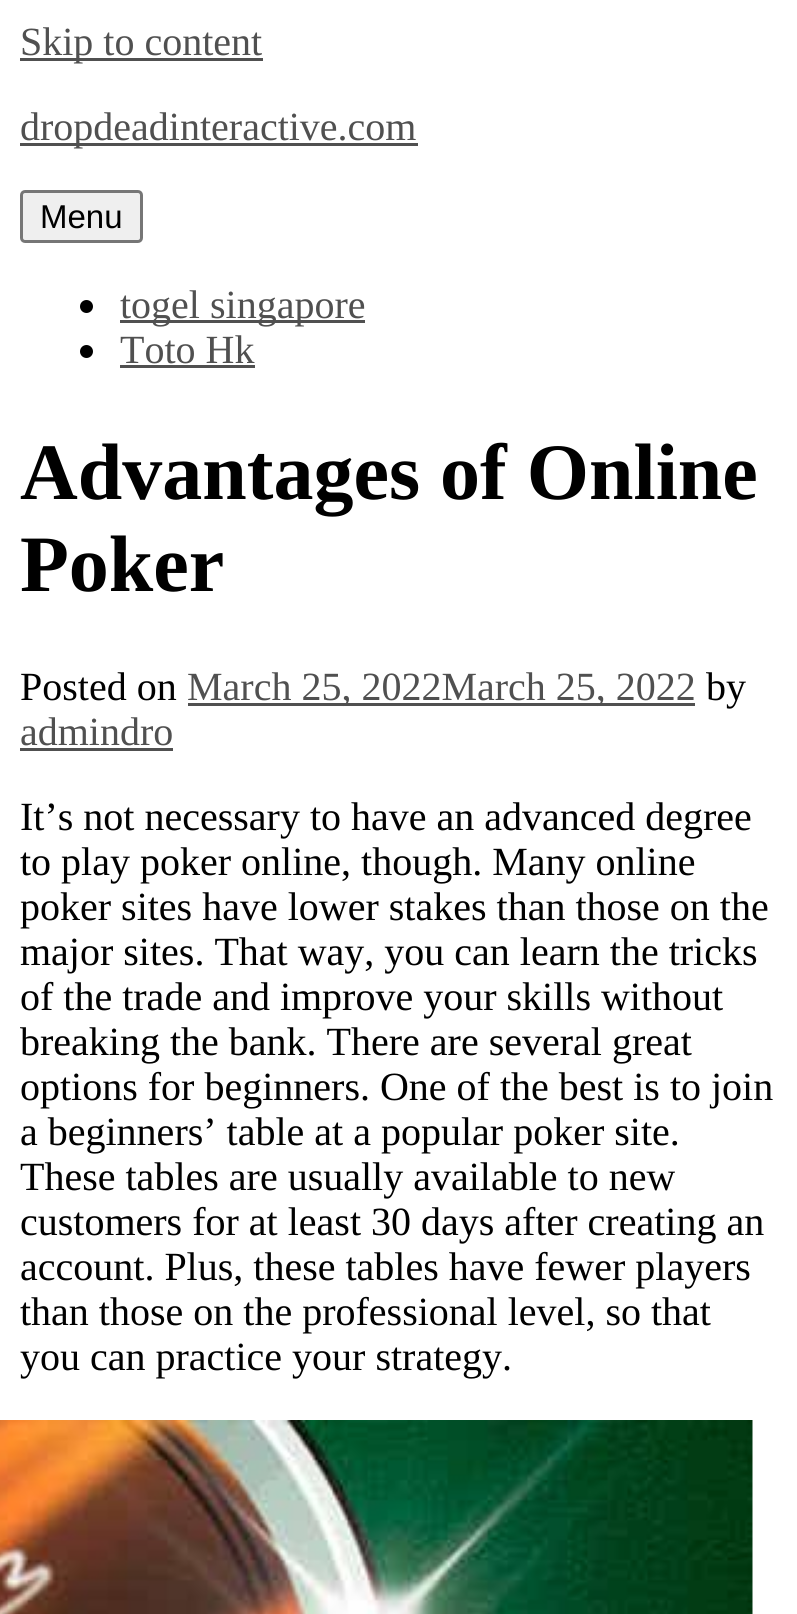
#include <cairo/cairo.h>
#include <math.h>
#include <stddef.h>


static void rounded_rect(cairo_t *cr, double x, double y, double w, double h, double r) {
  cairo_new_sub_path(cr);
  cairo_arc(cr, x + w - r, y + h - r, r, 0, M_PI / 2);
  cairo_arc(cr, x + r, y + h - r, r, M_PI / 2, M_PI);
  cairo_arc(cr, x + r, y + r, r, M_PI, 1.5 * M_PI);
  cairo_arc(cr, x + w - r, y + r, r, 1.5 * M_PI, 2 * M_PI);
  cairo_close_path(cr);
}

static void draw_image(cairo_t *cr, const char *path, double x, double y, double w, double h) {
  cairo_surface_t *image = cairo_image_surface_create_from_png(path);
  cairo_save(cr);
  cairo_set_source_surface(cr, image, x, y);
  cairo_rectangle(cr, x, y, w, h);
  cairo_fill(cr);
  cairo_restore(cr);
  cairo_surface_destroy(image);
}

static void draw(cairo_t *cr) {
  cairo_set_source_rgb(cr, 1, 1, 1);
  cairo_paint(cr);
  cairo_set_source_rgb(cr, 80 / 255.0, 80 / 255.0, 80 / 255.0);
  cairo_rectangle(cr, 20, 58, 243, 3);
  cairo_fill(cr);
  cairo_rectangle(cr, 20, 143, 398, 3);
  cairo_fill(cr);
  cairo_set_source_rgb(cr, 239 / 255.0, 239 / 255.0, 239 / 255.0);
  rounded_rect(cr, 21.5, 191.5, 120, 50, 3.5);
  cairo_fill_preserve(cr);
  cairo_set_source_rgb(cr, 118 / 255.0, 118 / 255.0, 118 / 255.0);
  cairo_set_line_width(cr, 3);
  cairo_stroke(cr);
  cairo_set_source_rgb(cr, 0, 0, 0);
  cairo_arc(cr, 86.5, 306.5, 6.5, 0, 2 * M_PI);
  cairo_fill(cr);
  cairo_set_source_rgb(cr, 80 / 255.0, 80 / 255.0, 80 / 255.0);
  cairo_rectangle(cr, 120, 320, 245, 3);
  cairo_fill(cr);
  cairo_set_source_rgb(cr, 0, 0, 0);
  cairo_arc(cr, 86.5, 351.5, 6.5, 0, 2 * M_PI);
  cairo_fill(cr);
  cairo_set_source_rgb(cr, 80 / 255.0, 80 / 255.0, 80 / 255.0);
  cairo_rectangle(cr, 120, 365, 135, 3);
  cairo_fill(cr);
  cairo_rectangle(cr, 188, 703, 507, 3);
  cairo_fill(cr);
  cairo_rectangle(cr, 20, 748, 153, 3);
  cairo_fill(cr);
  draw_image(cr, "images/1.png", 0, 1420, 753, 194);
  cairo_select_font_face(cr, "Liberation Serif", CAIRO_FONT_SLANT_NORMAL, CAIRO_FONT_WEIGHT_NORMAL);
  cairo_set_font_size(cr, 40);
  cairo_move_to(cr, 20, 55);
  cairo_show_text(cr, "Skip to content");
  cairo_move_to(cr, 20, 140);
  cairo_show_text(cr, "dropdeadinteractive.com");
  cairo_select_font_face(cr, "Liberation Sans", CAIRO_FONT_SLANT_NORMAL, CAIRO_FONT_WEIGHT_NORMAL);
  cairo_set_font_size(cr, 33);
  cairo_set_source_rgb(cr, 0, 0, 0);
  cairo_move_to(cr, 40, 228);
  cairo_show_text(cr, "Menu");
  cairo_select_font_face(cr, "Liberation Serif", CAIRO_FONT_SLANT_NORMAL, CAIRO_FONT_WEIGHT_NORMAL);
  cairo_set_font_size(cr, 40);
  cairo_set_source_rgb(cr, 80 / 255.0, 80 / 255.0, 80 / 255.0);
  cairo_move_to(cr, 120, 318);
  cairo_show_text(cr, "togel singapore");
  cairo_move_to(cr, 120, 363);
  cairo_show_text(cr, "Toto Hk");
  cairo_select_font_face(cr, "Liberation Serif", CAIRO_FONT_SLANT_NORMAL, CAIRO_FONT_WEIGHT_BOLD);
  cairo_set_font_size(cr, 80);
  cairo_set_source_rgb(cr, 0, 0, 0);
  cairo_move_to(cr, 20, 499);
  cairo_show_text(cr, "Advantages of Online");
  cairo_move_to(cr, 20, 591);
  cairo_show_text(cr, "Poker");
  cairo_select_font_face(cr, "Liberation Serif", CAIRO_FONT_SLANT_NORMAL, CAIRO_FONT_WEIGHT_NORMAL);
  cairo_set_font_size(cr, 40);
  cairo_move_to(cr, 20, 700);
  cairo_show_text(cr, "Posted on");
  cairo_set_source_rgb(cr, 80 / 255.0, 80 / 255.0, 80 / 255.0);
  cairo_move_to(cr, 187, 700);
  cairo_show_text(cr, "March 25, 2022March 25, 2022");
  cairo_set_source_rgb(cr, 0, 0, 0);
  cairo_move_to(cr, 706, 700);
  cairo_show_text(cr, "by");
  cairo_set_source_rgb(cr, 80 / 255.0, 80 / 255.0, 80 / 255.0);
  cairo_move_to(cr, 20, 745);
  cairo_show_text(cr, "admindro");
  cairo_set_source_rgb(cr, 0, 0, 0);
  cairo_move_to(cr, 20, 830);
  cairo_show_text(cr, "It’s not necessary to have an advanced degree");
  cairo_move_to(cr, 20, 875);
  cairo_show_text(cr, "to play poker online, though. Many online");
  cairo_move_to(cr, 20, 920);
  cairo_show_text(cr, "poker sites have lower stakes than those on the");
  cairo_move_to(cr, 20, 965);
  cairo_show_text(cr, "major sites. That way, you can learn the tricks");
  cairo_move_to(cr, 20, 1010);
  cairo_show_text(cr, "of the trade and improve your skills without");
  cairo_move_to(cr, 20, 1055);
  cairo_show_text(cr, "breaking the bank. There are several great");
  cairo_move_to(cr, 20, 1100);
  cairo_show_text(cr, "options for beginners. One of the best is to join");
  cairo_move_to(cr, 20, 1145);
  cairo_show_text(cr, "a beginners’ table at a popular poker site.");
  cairo_move_to(cr, 20, 1190);
  cairo_show_text(cr, "These tables are usually available to new");
  cairo_move_to(cr, 20, 1235);
  cairo_show_text(cr, "customers for at least 30 days after creating an");
  cairo_move_to(cr, 20, 1280);
  cairo_show_text(cr, "account. Plus, these tables have fewer players");
  cairo_move_to(cr, 20, 1325);
  cairo_show_text(cr, "than those on the professional level, so that");
  cairo_move_to(cr, 20, 1370);
  cairo_show_text(cr, "you can practice your strategy.");
}

int main(void) {
  cairo_surface_t *surface = cairo_image_surface_create(CAIRO_FORMAT_RGB24, 797, 1614);
  cairo_t *cr = cairo_create(surface);
  cairo_font_options_t *options = cairo_font_options_create();
  cairo_font_options_set_hint_metrics(options, CAIRO_HINT_METRICS_OFF);
  cairo_font_options_set_hint_style(options, CAIRO_HINT_STYLE_NONE);
  cairo_set_font_options(cr, options);
  cairo_set_miter_limit(cr, 4);
  draw(cr);
  cairo_surface_write_to_png(surface, "out.png");
  cairo_font_options_destroy(options);
  cairo_destroy(cr);
  cairo_surface_destroy(surface);
  return 0;
}
